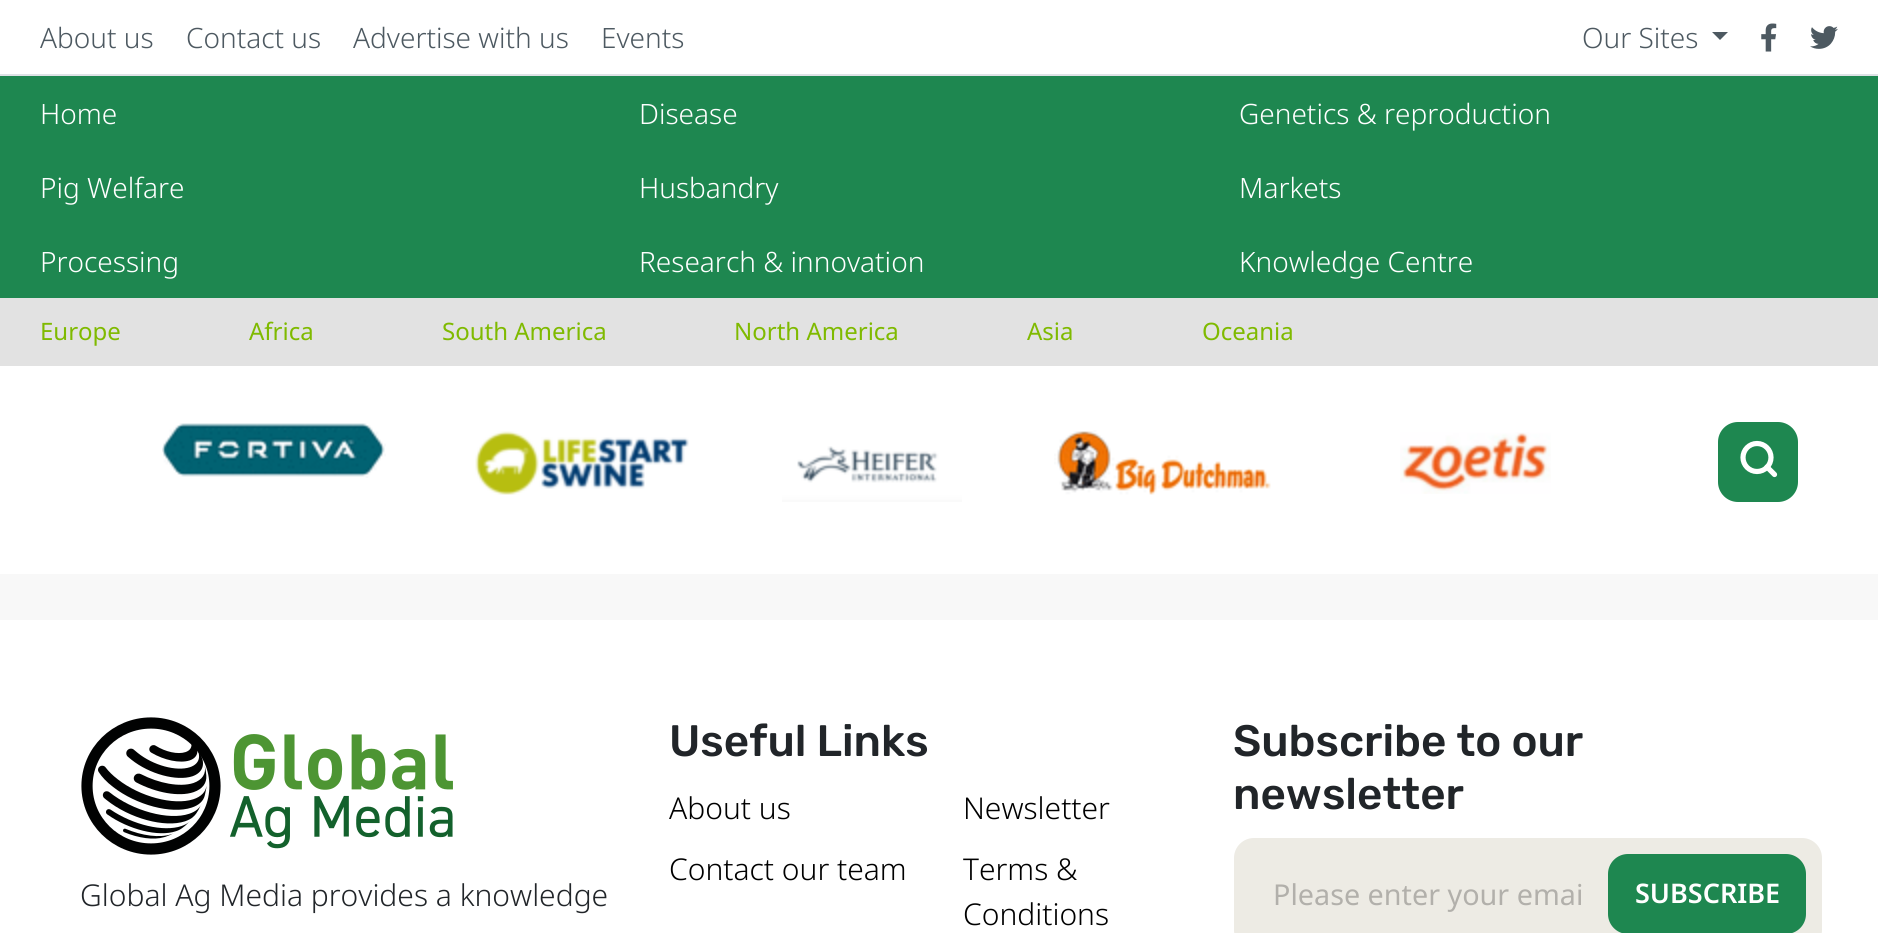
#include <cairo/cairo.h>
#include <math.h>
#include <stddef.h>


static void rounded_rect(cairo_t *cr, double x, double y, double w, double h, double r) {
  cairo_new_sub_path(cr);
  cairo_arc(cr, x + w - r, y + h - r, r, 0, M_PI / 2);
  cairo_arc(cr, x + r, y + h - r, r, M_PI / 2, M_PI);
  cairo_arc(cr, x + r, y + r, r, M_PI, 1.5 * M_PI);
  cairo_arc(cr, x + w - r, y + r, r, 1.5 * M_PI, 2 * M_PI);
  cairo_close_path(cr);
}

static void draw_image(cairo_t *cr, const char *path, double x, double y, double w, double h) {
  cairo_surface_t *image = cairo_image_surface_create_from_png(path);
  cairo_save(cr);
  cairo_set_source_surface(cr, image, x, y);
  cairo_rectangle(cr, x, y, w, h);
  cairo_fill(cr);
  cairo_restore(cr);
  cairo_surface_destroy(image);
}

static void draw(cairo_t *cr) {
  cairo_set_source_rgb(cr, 1, 1, 1);
  cairo_paint(cr);
  cairo_set_source_rgb(cr, 222 / 255.0, 226 / 255.0, 230 / 255.0);
  cairo_rectangle(cr, 0, 74, 1878, 2);
  cairo_fill(cr);
  cairo_set_source_rgb(cr, 77 / 255.0, 89 / 255.0, 97 / 255.0);
  cairo_new_path(cr);
  cairo_move_to(cr, 1712, 32);
  cairo_line_to(cr, 1728, 32);
  cairo_line_to(cr, 1720, 40);
  cairo_close_path(cr);
  cairo_fill(cr);
  draw_image(cr, "images/1.png", 1761, 23, 16, 29);
  draw_image(cr, "images/2.png", 1810, 26, 28, 23);
  cairo_set_source_rgb(cr, 30 / 255.0, 135 / 255.0, 80 / 255.0);
  cairo_rectangle(cr, 0, 76, 1878, 222);
  cairo_fill(cr);
  cairo_set_source_rgb(cr, 226 / 255.0, 226 / 255.0, 226 / 255.0);
  cairo_rectangle(cr, 0, 298, 1878, 68);
  cairo_fill(cr);
  draw_image(cr, "images/3.png", 162, 423, 224, 55);
  draw_image(cr, "images/4.png", 475, 431, 214, 64);
  draw_image(cr, "images/5.png", 782, 446, 180, 56);
  draw_image(cr, "images/6.png", 1054, 430, 217, 65);
  draw_image(cr, "images/7.png", 1400, 432, 151, 62);
  cairo_set_source_rgb(cr, 30 / 255.0, 135 / 255.0, 80 / 255.0);
  rounded_rect(cr, 1718, 422, 80, 80, 20);
  cairo_fill(cr);
  cairo_arc(cr, 1757, 457.5, 14, 0, 2 * M_PI);
  cairo_set_source_rgb(cr, 1, 1, 1);
  cairo_set_line_width(cr, 5.2);
  cairo_stroke(cr);
  cairo_new_path(cr);
  cairo_move_to(cr, 1774.5, 474.5);
  cairo_line_to(cr, 1767, 467);
  cairo_set_line_cap(cr, CAIRO_LINE_CAP_ROUND);
  cairo_set_line_join(cr, CAIRO_LINE_JOIN_ROUND);
  cairo_stroke(cr);
  cairo_set_source_rgb(cr, 248 / 255.0, 248 / 255.0, 248 / 255.0);
  cairo_rectangle(cr, 0, 574, 1878, 46);
  cairo_fill(cr);
  draw_image(cr, "images/8.png", 81, 717, 372, 138);
  cairo_set_source_rgb(cr, 237 / 255.0, 235 / 255.0, 228 / 255.0);
  rounded_rect(cr, 1234, 838, 588, 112, 20);
  cairo_fill(cr);
  cairo_set_source_rgb(cr, 30 / 255.0, 135 / 255.0, 80 / 255.0);
  rounded_rect(cr, 1609, 855, 196, 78, 19);
  cairo_fill_preserve(cr);
  cairo_set_line_width(cr, 2);
  cairo_set_line_cap(cr, CAIRO_LINE_CAP_BUTT);
  cairo_set_line_join(cr, CAIRO_LINE_JOIN_MITER);
  cairo_stroke(cr);
  cairo_select_font_face(cr, "Noto Sans Light", CAIRO_FONT_SLANT_NORMAL, CAIRO_FONT_WEIGHT_NORMAL);
  cairo_set_font_size(cr, 28);
  cairo_set_source_rgb(cr, 77 / 255.0, 89 / 255.0, 97 / 255.0);
  cairo_move_to(cr, 40, 48);
  cairo_show_text(cr, "About us");
  cairo_move_to(cr, 186, 48);
  cairo_show_text(cr, "Contact us");
  cairo_move_to(cr, 353, 48);
  cairo_show_text(cr, "Advertise with us");
  cairo_move_to(cr, 601, 48);
  cairo_show_text(cr, "Events");
  cairo_move_to(cr, 1582, 48);
  cairo_show_text(cr, "Our Sites");
  cairo_set_source_rgb(cr, 1, 1, 1);
  cairo_move_to(cr, 40, 124);
  cairo_show_text(cr, "Home");
  cairo_move_to(cr, 639, 124);
  cairo_show_text(cr, "Disease");
  cairo_move_to(cr, 1239, 124);
  cairo_show_text(cr, "Genetics & reproduction");
  cairo_move_to(cr, 40, 198);
  cairo_show_text(cr, "Pig Welfare");
  cairo_move_to(cr, 639, 198);
  cairo_show_text(cr, "Husbandry");
  cairo_move_to(cr, 1239, 198);
  cairo_show_text(cr, "Markets");
  cairo_move_to(cr, 40, 272);
  cairo_show_text(cr, "Processing");
  cairo_move_to(cr, 639, 272);
  cairo_show_text(cr, "Research & innovation");
  cairo_move_to(cr, 1239, 272);
  cairo_show_text(cr, "Knowledge Centre");
  cairo_select_font_face(cr, "Noto Sans", CAIRO_FONT_SLANT_NORMAL, CAIRO_FONT_WEIGHT_NORMAL);
  cairo_set_font_size(cr, 24);
  cairo_set_source_rgb(cr, 127 / 255.0, 186 / 255.0, 0);
  cairo_move_to(cr, 40, 340);
  cairo_show_text(cr, "Europe");
  cairo_move_to(cr, 249, 340);
  cairo_show_text(cr, "Africa");
  cairo_move_to(cr, 442, 340);
  cairo_show_text(cr, "South America");
  cairo_move_to(cr, 734, 340);
  cairo_show_text(cr, "North America");
  cairo_move_to(cr, 1027, 340);
  cairo_show_text(cr, "Asia");
  cairo_move_to(cr, 1202, 340);
  cairo_show_text(cr, "Oceania");
  cairo_select_font_face(cr, "Noto Sans Light", CAIRO_FONT_SLANT_NORMAL, CAIRO_FONT_WEIGHT_NORMAL);
  cairo_set_font_size(cr, 30);
  cairo_set_source_rgb(cr, 33 / 255.0, 37 / 255.0, 41 / 255.0);
  cairo_move_to(cr, 80, 906);
  cairo_show_text(cr, "Global Ag Media provides a knowledge");
  cairo_select_font_face(cr, "Rubik Medium", CAIRO_FONT_SLANT_NORMAL, CAIRO_FONT_WEIGHT_NORMAL);
  cairo_set_font_size(cr, 44);
  cairo_move_to(cr, 669, 756);
  cairo_show_text(cr, "Useful Links");
  cairo_select_font_face(cr, "Noto Sans Light", CAIRO_FONT_SLANT_NORMAL, CAIRO_FONT_WEIGHT_NORMAL);
  cairo_set_font_size(cr, 30);
  cairo_set_source_rgb(cr, 0, 0, 0);
  cairo_move_to(cr, 669, 819);
  cairo_show_text(cr, "About us");
  cairo_move_to(cr, 669, 880);
  cairo_show_text(cr, "Contact our team");
  cairo_move_to(cr, 963, 819);
  cairo_show_text(cr, "Newsletter");
  cairo_move_to(cr, 963, 880);
  cairo_show_text(cr, "Terms &");
  cairo_move_to(cr, 963, 925);
  cairo_show_text(cr, "Conditions");
  cairo_select_font_face(cr, "Rubik Medium", CAIRO_FONT_SLANT_NORMAL, CAIRO_FONT_WEIGHT_NORMAL);
  cairo_set_font_size(cr, 44);
  cairo_set_source_rgb(cr, 33 / 255.0, 37 / 255.0, 41 / 255.0);
  cairo_move_to(cr, 1233, 756);
  cairo_show_text(cr, "Subscribe to our");
  cairo_move_to(cr, 1233, 809);
  cairo_show_text(cr, "newsletter");
  cairo_select_font_face(cr, "Noto Sans", CAIRO_FONT_SLANT_NORMAL, CAIRO_FONT_WEIGHT_NORMAL);
  cairo_set_font_size(cr, 28.75);
  cairo_set_source_rgb(cr, 178 / 255.0, 176 / 255.0, 171 / 255.0);
  cairo_move_to(cr, 1273, 905);
  cairo_show_text(cr, "Please enter your emai");
  cairo_select_font_face(cr, "Noto Sans SemiBold", CAIRO_FONT_SLANT_NORMAL, CAIRO_FONT_WEIGHT_NORMAL);
  cairo_set_font_size(cr, 27);
  cairo_set_source_rgb(cr, 1, 1, 1);
  cairo_move_to(cr, 1635, 903);
  cairo_show_text(cr, "SUBSCRIBE");
}

int main(void) {
  cairo_surface_t *surface = cairo_image_surface_create(CAIRO_FORMAT_RGB24, 1878, 933);
  cairo_t *cr = cairo_create(surface);
  cairo_font_options_t *options = cairo_font_options_create();
  cairo_font_options_set_hint_metrics(options, CAIRO_HINT_METRICS_OFF);
  cairo_font_options_set_hint_style(options, CAIRO_HINT_STYLE_NONE);
  cairo_set_font_options(cr, options);
  cairo_set_miter_limit(cr, 4);
  draw(cr);
  cairo_surface_write_to_png(surface, "out.png");
  cairo_font_options_destroy(options);
  cairo_destroy(cr);
  cairo_surface_destroy(surface);
  return 0;
}
